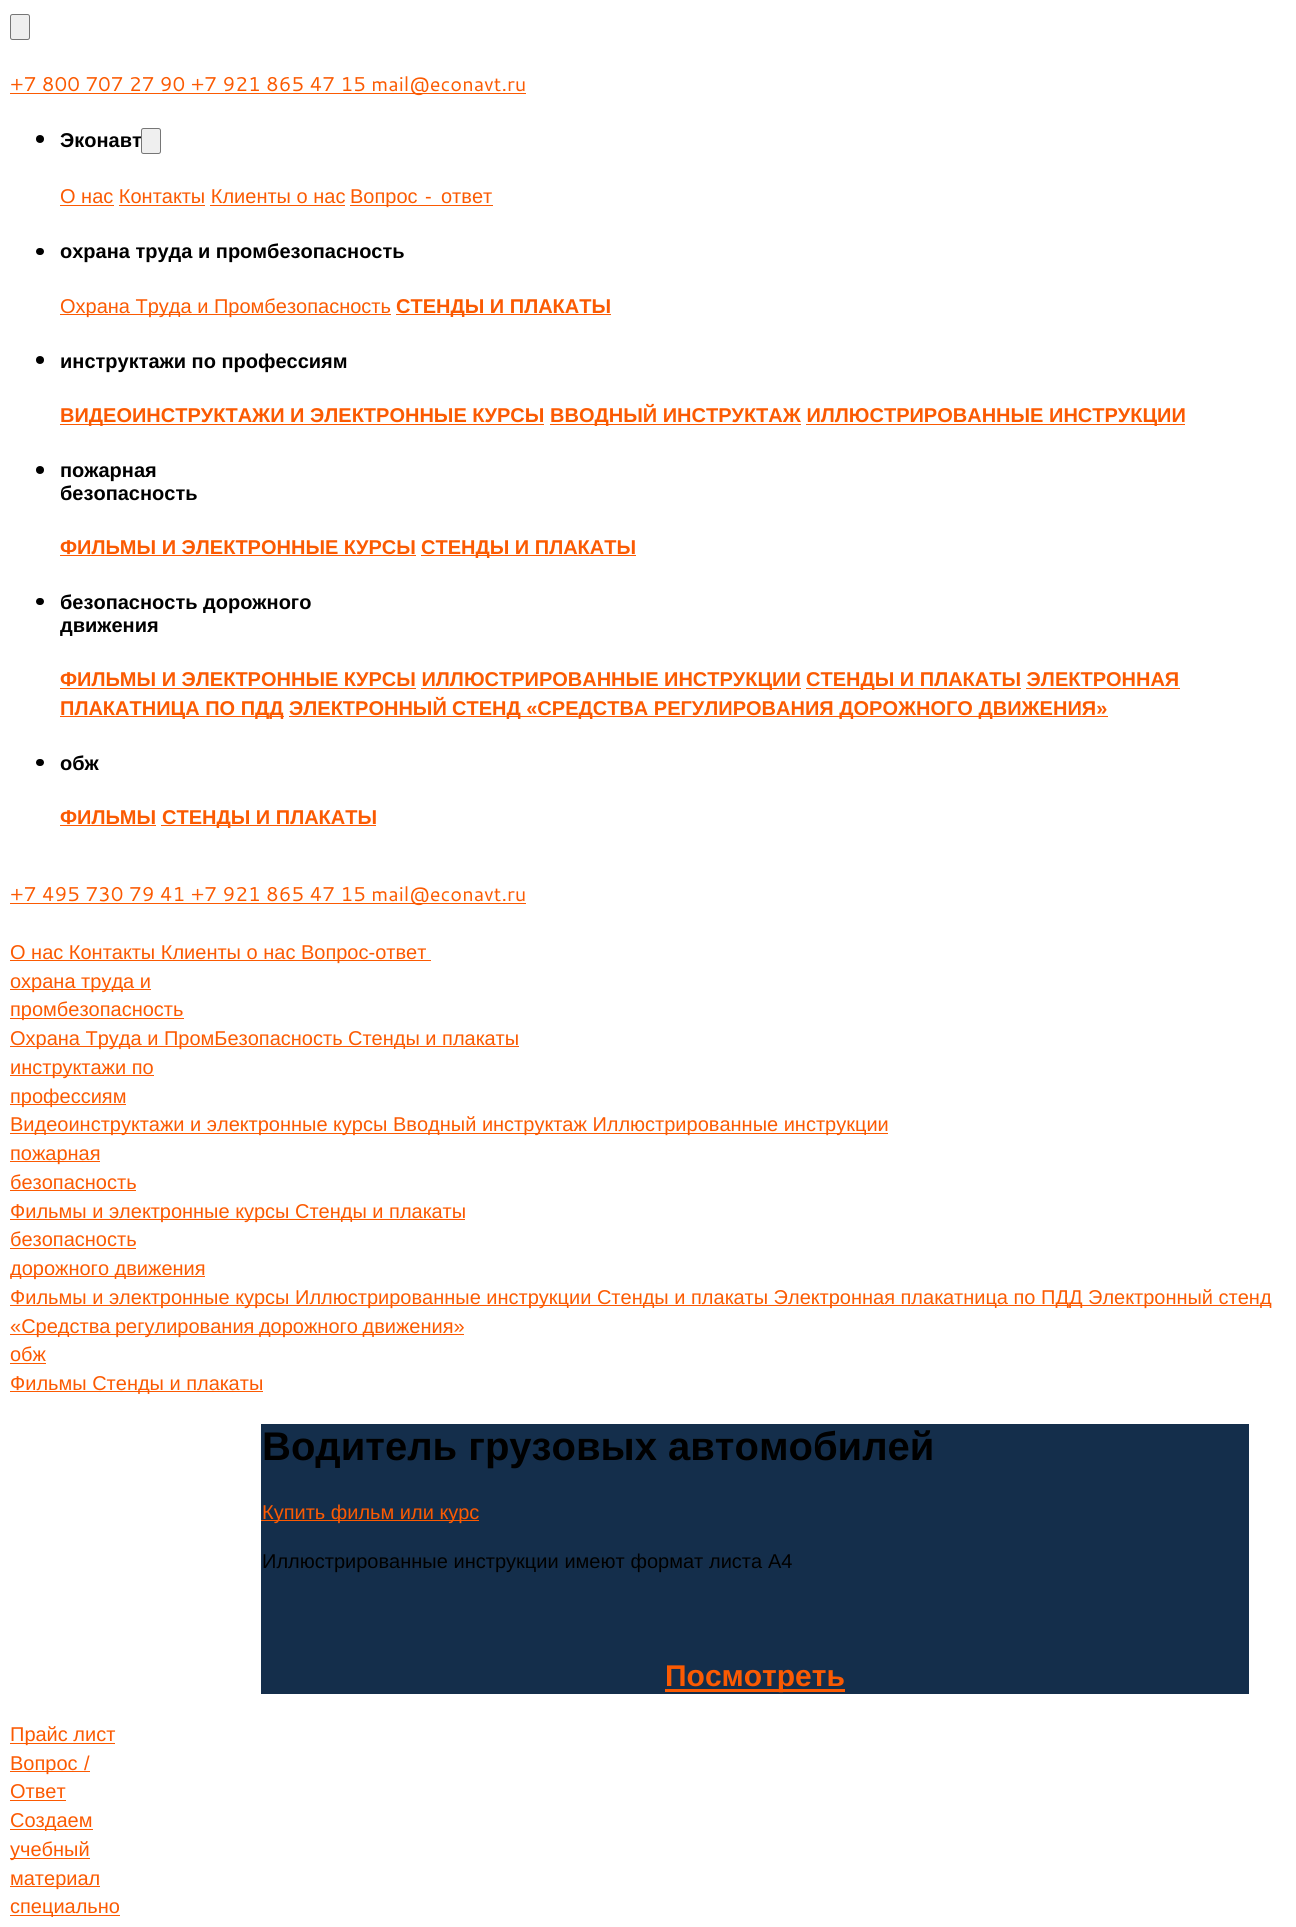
#include <cairo/cairo.h>
#include <math.h>
#include <stddef.h>


static void draw_spaced(cairo_t *cr, double x, double y, const char *s, double letter, double word) {
  cairo_move_to(cr, x, y);
  while (*s) {
    char ch[5] = {0};
    int n = 0;
    do ch[n++] = *s++; while ((*s & 0xC0) == 0x80);
    cairo_show_text(cr, ch);
    cairo_rel_move_to(cr, letter + word * (*ch == ' '), 0);
  }
}

static void rounded_rect(cairo_t *cr, double x, double y, double w, double h, double r) {
  cairo_new_sub_path(cr);
  cairo_arc(cr, x + w - r, y + h - r, r, 0, M_PI / 2);
  cairo_arc(cr, x + r, y + h - r, r, M_PI / 2, M_PI);
  cairo_arc(cr, x + r, y + r, r, M_PI, 1.5 * M_PI);
  cairo_arc(cr, x + w - r, y + r, r, 1.5 * M_PI, 2 * M_PI);
  cairo_close_path(cr);
}

static void draw(cairo_t *cr) {
  cairo_set_source_rgb(cr, 1, 1, 1);
  cairo_paint(cr);
  cairo_set_source_rgb(cr, 239 / 255.0, 239 / 255.0, 239 / 255.0);
  rounded_rect(cr, 10.5, 14.5, 19, 25, 2);
  cairo_fill_preserve(cr);
  cairo_set_source_rgb(cr, 118 / 255.0, 118 / 255.0, 118 / 255.0);
  cairo_set_line_width(cr, 1);
  cairo_stroke(cr);
  cairo_set_source_rgb(cr, 251 / 255.0, 90 / 255.0, 2 / 255.0);
  cairo_rectangle(cr, 10, 93, 516, 1);
  cairo_fill(cr);
  cairo_set_source_rgb(cr, 0, 0, 0);
  cairo_arc(cr, 40, 139, 4, 0, 2 * M_PI);
  cairo_fill(cr);
  cairo_set_source_rgb(cr, 251 / 255.0, 90 / 255.0, 2 / 255.0);
  cairo_rectangle(cr, 60, 205, 54, 1);
  cairo_fill(cr);
  cairo_rectangle(cr, 350, 205, 143, 1);
  cairo_fill(cr);
  cairo_rectangle(cr, 119, 205, 86, 1);
  cairo_fill(cr);
  cairo_rectangle(cr, 210, 205, 135, 1);
  cairo_fill(cr);
  cairo_set_source_rgb(cr, 0, 0, 0);
  rounded_rect(cr, 36, 248, 8, 7, 3.5);
  cairo_fill(cr);
  cairo_set_source_rgb(cr, 251 / 255.0, 90 / 255.0, 2 / 255.0);
  cairo_rectangle(cr, 60, 314, 331, 1);
  cairo_fill(cr);
  cairo_rectangle(cr, 396, 314, 215, 1);
  cairo_fill(cr);
  cairo_set_source_rgb(cr, 0, 0, 0);
  cairo_arc(cr, 40, 360, 4, 0, 2 * M_PI);
  cairo_fill(cr);
  cairo_set_source_rgb(cr, 251 / 255.0, 90 / 255.0, 2 / 255.0);
  cairo_rectangle(cr, 60, 424, 484, 1);
  cairo_fill(cr);
  cairo_rectangle(cr, 550, 424, 251, 1);
  cairo_fill(cr);
  cairo_rectangle(cr, 806, 424, 379, 1);
  cairo_fill(cr);
  cairo_set_source_rgb(cr, 0, 0, 0);
  cairo_arc(cr, 40, 470, 4, 0, 2 * M_PI);
  cairo_fill(cr);
  cairo_set_source_rgb(cr, 251 / 255.0, 90 / 255.0, 2 / 255.0);
  cairo_rectangle(cr, 60, 555, 356, 1);
  cairo_fill(cr);
  cairo_rectangle(cr, 421, 555, 215, 1);
  cairo_fill(cr);
  cairo_set_source_rgb(cr, 0, 0, 0);
  rounded_rect(cr, 36, 598, 8, 7, 3.5);
  cairo_fill(cr);
  cairo_set_source_rgb(cr, 251 / 255.0, 90 / 255.0, 2 / 255.0);
  cairo_rectangle(cr, 60, 688, 356, 1);
  cairo_fill(cr);
  cairo_rectangle(cr, 421, 688, 380, 1);
  cairo_fill(cr);
  cairo_rectangle(cr, 806, 688, 215, 1);
  cairo_fill(cr);
  cairo_rectangle(cr, 1026, 688, 154, 1);
  cairo_fill(cr);
  cairo_rectangle(cr, 60, 716, 224, 1);
  cairo_fill(cr);
  cairo_rectangle(cr, 289, 716, 819, 1);
  cairo_fill(cr);
  cairo_set_source_rgb(cr, 0, 0, 0);
  rounded_rect(cr, 36, 759, 8, 7, 3.5);
  cairo_fill(cr);
  cairo_set_source_rgb(cr, 251 / 255.0, 90 / 255.0, 2 / 255.0);
  cairo_rectangle(cr, 60, 825, 96, 1);
  cairo_fill(cr);
  cairo_rectangle(cr, 161, 825, 215, 1);
  cairo_fill(cr);
  cairo_rectangle(cr, 10, 903, 516, 1);
  cairo_fill(cr);
  cairo_rectangle(cr, 10, 960, 421, 1);
  cairo_fill(cr);
  cairo_rectangle(cr, 10, 989, 141, 1);
  cairo_fill(cr);
  cairo_rectangle(cr, 10, 1018, 174, 1);
  cairo_fill(cr);
  cairo_rectangle(cr, 10, 1046, 509, 1);
  cairo_fill(cr);
  cairo_rectangle(cr, 10, 1075, 144, 1);
  cairo_fill(cr);
  cairo_rectangle(cr, 10, 1104, 116, 1);
  cairo_fill(cr);
  cairo_rectangle(cr, 10, 1133, 878, 1);
  cairo_fill(cr);
  cairo_rectangle(cr, 10, 1161, 90, 1);
  cairo_fill(cr);
  cairo_rectangle(cr, 10, 1190, 126, 1);
  cairo_fill(cr);
  cairo_rectangle(cr, 10, 1219, 455, 1);
  cairo_fill(cr);
  cairo_rectangle(cr, 10, 1248, 126, 1);
  cairo_fill(cr);
  cairo_rectangle(cr, 10, 1276, 195, 1);
  cairo_fill(cr);
  cairo_rectangle(cr, 10, 1305, 1260, 1);
  cairo_fill(cr);
  cairo_rectangle(cr, 10, 1334, 454, 1);
  cairo_fill(cr);
  cairo_rectangle(cr, 10, 1363, 36, 1);
  cairo_fill(cr);
  cairo_rectangle(cr, 10, 1391, 253, 1);
  cairo_fill(cr);
  cairo_set_source_rgb(cr, 20 / 255.0, 46 / 255.0, 75 / 255.0);
  cairo_rectangle(cr, 261, 1424, 988, 270);
  cairo_fill(cr);
  cairo_set_source_rgb(cr, 251 / 255.0, 90 / 255.0, 2 / 255.0);
  cairo_rectangle(cr, 261, 1520, 218, 1);
  cairo_fill(cr);
  cairo_rectangle(cr, 665, 1689, 180, 3);
  cairo_fill(cr);
  cairo_rectangle(cr, 10, 1743, 105, 1);
  cairo_fill(cr);
  cairo_rectangle(cr, 10, 1771, 80, 1);
  cairo_fill(cr);
  cairo_rectangle(cr, 10, 1800, 56, 1);
  cairo_fill(cr);
  cairo_rectangle(cr, 10, 1829, 83, 1);
  cairo_fill(cr);
  cairo_rectangle(cr, 10, 1858, 80, 1);
  cairo_fill(cr);
  cairo_rectangle(cr, 10, 1886, 90, 1);
  cairo_fill(cr);
  cairo_rectangle(cr, 10, 1915, 110, 1);
  cairo_fill(cr);
  cairo_select_font_face(cr, "Cantarell", CAIRO_FONT_SLANT_NORMAL, CAIRO_FONT_WEIGHT_NORMAL);
  cairo_set_font_size(cr, 20);
  cairo_move_to(cr, 10, 91);
  cairo_show_text(cr, "+7 800 707 27 90 +7 921 865 47 15 mail@econavt.ru");
  cairo_select_font_face(cr, "Liberation Sans", CAIRO_FONT_SLANT_NORMAL, CAIRO_FONT_WEIGHT_BOLD);
  cairo_set_source_rgb(cr, 0, 0, 0);
  cairo_move_to(cr, 60, 147);
  cairo_show_text(cr, "Эконавт");
  cairo_set_source_rgb(cr, 239 / 255.0, 239 / 255.0, 239 / 255.0);
  rounded_rect(cr, 141.5, 128.5, 19, 25, 2);
  cairo_fill_preserve(cr);
  cairo_set_source_rgb(cr, 118 / 255.0, 118 / 255.0, 118 / 255.0);
  cairo_stroke(cr);
  cairo_select_font_face(cr, "Liberation Sans", CAIRO_FONT_SLANT_NORMAL, CAIRO_FONT_WEIGHT_NORMAL);
  cairo_set_source_rgb(cr, 251 / 255.0, 90 / 255.0, 2 / 255.0);
  cairo_move_to(cr, 60, 203);
  cairo_show_text(cr, "О нас Контакты Клиенты о нас");
  draw_spaced(cr, 350, 203, "Вопрос -", 0, 2);
  cairo_move_to(cr, 441, 203);
  cairo_show_text(cr, "ответ");
  cairo_select_font_face(cr, "Liberation Sans", CAIRO_FONT_SLANT_NORMAL, CAIRO_FONT_WEIGHT_BOLD);
  cairo_set_source_rgb(cr, 0, 0, 0);
  cairo_move_to(cr, 60, 258);
  cairo_show_text(cr, "охрана труда и промбезопасность");
  cairo_select_font_face(cr, "Liberation Sans", CAIRO_FONT_SLANT_NORMAL, CAIRO_FONT_WEIGHT_NORMAL);
  cairo_set_source_rgb(cr, 251 / 255.0, 90 / 255.0, 2 / 255.0);
  cairo_move_to(cr, 60, 313);
  cairo_show_text(cr, "Охрана Труда и Промбезопасность");
  cairo_select_font_face(cr, "Liberation Sans", CAIRO_FONT_SLANT_NORMAL, CAIRO_FONT_WEIGHT_BOLD);
  cairo_move_to(cr, 396, 313);
  cairo_show_text(cr, "СТЕНДЫ И ПЛАКАТЫ");
  cairo_set_source_rgb(cr, 0, 0, 0);
  cairo_move_to(cr, 60, 368);
  cairo_show_text(cr, "инструктажи по профессиям");
  cairo_set_source_rgb(cr, 251 / 255.0, 90 / 255.0, 2 / 255.0);
  cairo_move_to(cr, 60, 422);
  cairo_show_text(cr, "ВИДЕОИНСТРУКТАЖИ И ЭЛЕКТРОННЫЕ КУРСЫ");
  cairo_move_to(cr, 550, 422);
  cairo_show_text(cr, "ВВОДНЫЙ ИНСТРУКТАЖ ИЛЛЮСТРИРОВАННЫЕ");
  cairo_move_to(cr, 1049, 422);
  cairo_show_text(cr, "ИНСТРУКЦИИ");
  cairo_set_source_rgb(cr, 0, 0, 0);
  cairo_move_to(cr, 60, 477);
  cairo_show_text(cr, "пожарная");
  cairo_move_to(cr, 60, 500);
  cairo_show_text(cr, "безопасность");
  cairo_set_source_rgb(cr, 251 / 255.0, 90 / 255.0, 2 / 255.0);
  cairo_move_to(cr, 60, 554);
  cairo_show_text(cr, "ФИЛЬМЫ И ЭЛЕКТРОННЫЕ КУРСЫ");
  cairo_move_to(cr, 421, 554);
  cairo_show_text(cr, "СТЕНДЫ И ПЛАКАТЫ");
  cairo_set_source_rgb(cr, 0, 0, 0);
  cairo_move_to(cr, 60, 609);
  cairo_show_text(cr, "безопасность дорожного");
  cairo_move_to(cr, 60, 632);
  cairo_show_text(cr, "движения");
  cairo_set_source_rgb(cr, 251 / 255.0, 90 / 255.0, 2 / 255.0);
  cairo_move_to(cr, 60, 686);
  cairo_show_text(cr, "ФИЛЬМЫ И ЭЛЕКТРОННЫЕ КУРСЫ ИЛЛЮСТРИРОВАННЫЕ");
  cairo_move_to(cr, 664, 686);
  cairo_show_text(cr, "ИНСТРУКЦИИ");
  cairo_move_to(cr, 806, 686);
  cairo_show_text(cr, "СТЕНДЫ И ПЛАКАТЫ ЭЛЕКТРОННАЯ");
  cairo_move_to(cr, 60, 715);
  cairo_show_text(cr, "ПЛАКАТНИЦА ПО ПДД ЭЛЕКТРОННЫЙ");
  cairo_move_to(cr, 452, 715);
  cairo_show_text(cr, "СТЕНД «СРЕДСТВА РЕГУЛИРОВАНИЯ ДОРОЖНОГО ДВИЖЕНИЯ»");
  cairo_set_source_rgb(cr, 0, 0, 0);
  cairo_move_to(cr, 60, 770);
  cairo_show_text(cr, "обж");
  cairo_set_source_rgb(cr, 251 / 255.0, 90 / 255.0, 2 / 255.0);
  cairo_move_to(cr, 60, 824);
  cairo_show_text(cr, "ФИЛЬМЫ");
  cairo_move_to(cr, 162, 824);
  cairo_show_text(cr, "СТЕНДЫ И ПЛАКАТЫ");
  cairo_select_font_face(cr, "Cantarell", CAIRO_FONT_SLANT_NORMAL, CAIRO_FONT_WEIGHT_NORMAL);
  cairo_move_to(cr, 10, 901);
  cairo_show_text(cr, "+7 495 730 79 41 +7 921 865 47 15 mail@econavt.ru");
  cairo_select_font_face(cr, "Liberation Sans", CAIRO_FONT_SLANT_NORMAL, CAIRO_FONT_WEIGHT_NORMAL);
  cairo_move_to(cr, 10, 959);
  cairo_show_text(cr, "О нас Контакты Клиенты о нас Вопрос-ответ");
  cairo_move_to(cr, 10, 988);
  cairo_show_text(cr, "охрана труда и");
  cairo_move_to(cr, 10, 1016);
  cairo_show_text(cr, "промбезопасность");
  cairo_move_to(cr, 10, 1045);
  cairo_show_text(cr, "Охрана Труда и ПромБезопасность");
  cairo_move_to(cr, 348, 1045);
  cairo_show_text(cr, "Стенды и плакаты");
  cairo_move_to(cr, 10, 1074);
  cairo_show_text(cr, "инструктажи по");
  cairo_move_to(cr, 10, 1103);
  cairo_show_text(cr, "профессиям");
  cairo_move_to(cr, 10, 1131);
  cairo_show_text(cr, "Видеоинструктажи и электронные курсы");
  cairo_move_to(cr, 393, 1131);
  cairo_show_text(cr, "Вводный инструктаж Иллюстрированные инструкции");
  cairo_move_to(cr, 10, 1160);
  cairo_show_text(cr, "пожарная");
  cairo_move_to(cr, 10, 1189);
  cairo_show_text(cr, "безопасность");
  cairo_move_to(cr, 10, 1218);
  cairo_show_text(cr, "Фильмы и электронные курсы");
  cairo_move_to(cr, 295, 1218);
  cairo_show_text(cr, "Стенды и плакаты");
  cairo_move_to(cr, 10, 1246);
  cairo_show_text(cr, "безопасность");
  cairo_move_to(cr, 10, 1275);
  cairo_show_text(cr, "дорожного движения");
  cairo_move_to(cr, 10, 1304);
  cairo_show_text(cr, "Фильмы и электронные курсы");
  cairo_move_to(cr, 295, 1304);
  cairo_show_text(cr, "Иллюстрированные инструкции Стенды и плакаты Электронная плакатница по ПДД Электронный стенд");
  draw_spaced(cr, 10, 1333, "«Средства регулирования дорожного движения»", 0, -1);
  cairo_move_to(cr, 10, 1361);
  cairo_show_text(cr, "обж");
  cairo_move_to(cr, 10, 1390);
  cairo_show_text(cr, "Фильмы Стенды и плакаты");
  cairo_select_font_face(cr, "Liberation Sans", CAIRO_FONT_SLANT_NORMAL, CAIRO_FONT_WEIGHT_BOLD);
  cairo_set_font_size(cr, 40);
  cairo_set_source_rgb(cr, 0, 0, 0);
  cairo_move_to(cr, 262, 1460);
  cairo_show_text(cr, "Водитель грузовых автомобилей");
  cairo_select_font_face(cr, "Liberation Sans", CAIRO_FONT_SLANT_NORMAL, CAIRO_FONT_WEIGHT_NORMAL);
  cairo_set_font_size(cr, 20);
  cairo_set_source_rgb(cr, 251 / 255.0, 90 / 255.0, 2 / 255.0);
  cairo_move_to(cr, 262, 1519);
  cairo_show_text(cr, "Купить фильм или курс");
  cairo_set_source_rgb(cr, 0, 0, 0);
  draw_spaced(cr, 262, 1568, "Иллюстрированные инструкции имеют формат листа А4", 0, 0.25);
  cairo_select_font_face(cr, "Liberation Sans", CAIRO_FONT_SLANT_NORMAL, CAIRO_FONT_WEIGHT_BOLD);
  cairo_set_font_size(cr, 30);
  cairo_set_source_rgb(cr, 251 / 255.0, 90 / 255.0, 2 / 255.0);
  cairo_move_to(cr, 665, 1686);
  cairo_show_text(cr, "Посмотреть");
  cairo_select_font_face(cr, "Liberation Sans", CAIRO_FONT_SLANT_NORMAL, CAIRO_FONT_WEIGHT_NORMAL);
  cairo_set_font_size(cr, 20);
  cairo_move_to(cr, 10, 1741);
  cairo_show_text(cr, "Прайс лист");
  draw_spaced(cr, 10, 1770, "Вопрос /", 0, 1);
  cairo_move_to(cr, 10, 1798);
  cairo_show_text(cr, "Ответ");
  cairo_move_to(cr, 10, 1827);
  cairo_show_text(cr, "Создаем");
  cairo_move_to(cr, 10, 1856);
  cairo_show_text(cr, "учебный");
  cairo_move_to(cr, 10, 1885);
  cairo_show_text(cr, "материал");
  cairo_move_to(cr, 10, 1913);
  cairo_show_text(cr, "специально");
}

int main(void) {
  cairo_surface_t *surface = cairo_image_surface_create(CAIRO_FORMAT_RGB24, 1296, 1927);
  cairo_t *cr = cairo_create(surface);
  cairo_font_options_t *options = cairo_font_options_create();
  cairo_font_options_set_hint_metrics(options, CAIRO_HINT_METRICS_OFF);
  cairo_font_options_set_hint_style(options, CAIRO_HINT_STYLE_NONE);
  cairo_set_font_options(cr, options);
  cairo_set_miter_limit(cr, 4);
  draw(cr);
  cairo_surface_write_to_png(surface, "out.png");
  cairo_font_options_destroy(options);
  cairo_destroy(cr);
  cairo_surface_destroy(surface);
  return 0;
}
